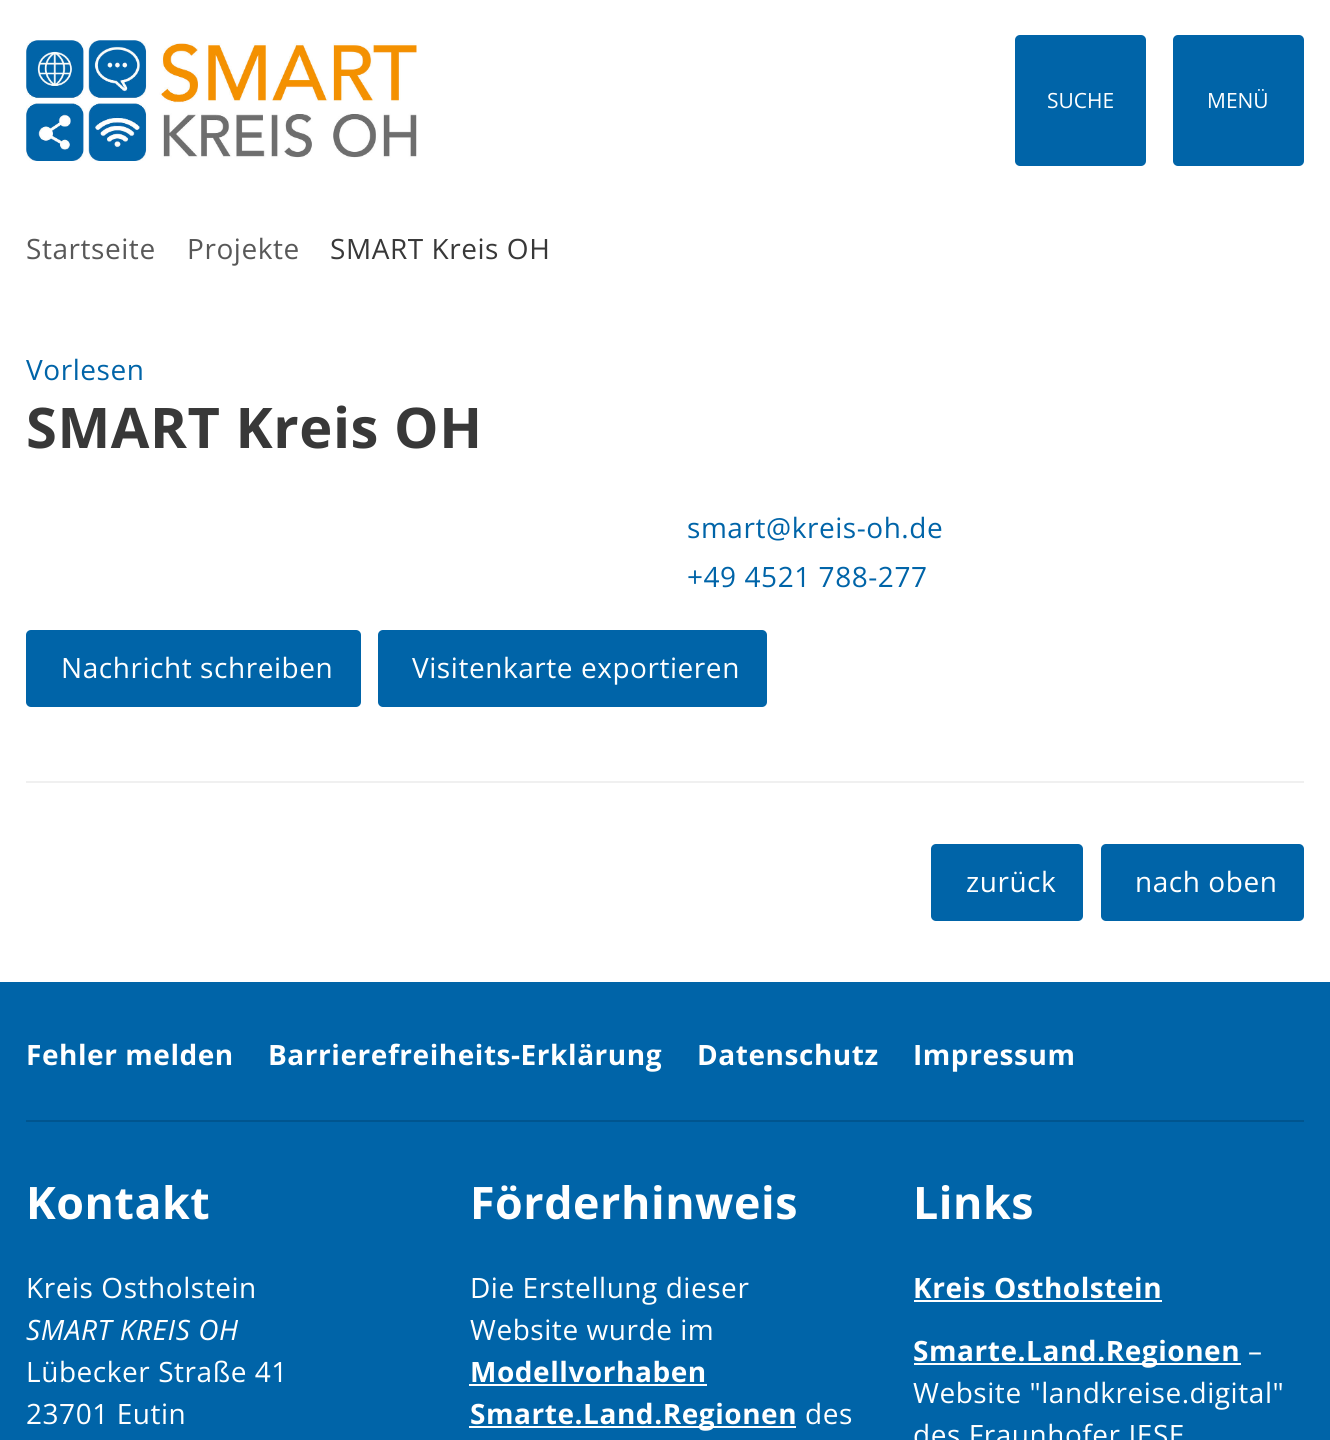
#include <cairo/cairo.h>
#include <math.h>
#include <stddef.h>


static void draw_spaced(cairo_t *cr, double x, double y, const char *s, double letter, double word) {
  cairo_move_to(cr, x, y);
  while (*s) {
    char ch[5] = {0};
    int n = 0;
    do ch[n++] = *s++; while ((*s & 0xC0) == 0x80);
    cairo_show_text(cr, ch);
    cairo_rel_move_to(cr, letter + word * (*ch == ' '), 0);
  }
}

static void rounded_rect(cairo_t *cr, double x, double y, double w, double h, double r) {
  cairo_new_sub_path(cr);
  cairo_arc(cr, x + w - r, y + h - r, r, 0, M_PI / 2);
  cairo_arc(cr, x + r, y + h - r, r, M_PI / 2, M_PI);
  cairo_arc(cr, x + r, y + r, r, M_PI, 1.5 * M_PI);
  cairo_arc(cr, x + w - r, y + r, r, 1.5 * M_PI, 2 * M_PI);
  cairo_close_path(cr);
}

static void draw_image(cairo_t *cr, const char *path, double x, double y, double w, double h) {
  cairo_surface_t *image = cairo_image_surface_create_from_png(path);
  cairo_save(cr);
  cairo_set_source_surface(cr, image, x, y);
  cairo_rectangle(cr, x, y, w, h);
  cairo_fill(cr);
  cairo_restore(cr);
  cairo_surface_destroy(image);
}

static void draw(cairo_t *cr) {
  cairo_set_source_rgb(cr, 1, 1, 1);
  cairo_paint(cr);
  draw_image(cr, "images/1.png", 26, 40, 391, 121);
  cairo_set_source_rgb(cr, 0, 100 / 255.0, 168 / 255.0);
  rounded_rect(cr, 1015, 35, 131, 131, 5);
  cairo_fill(cr);
  rounded_rect(cr, 1173, 35, 131, 131, 5);
  cairo_fill(cr);
  rounded_rect(cr, 26, 630, 335, 77, 5);
  cairo_fill(cr);
  rounded_rect(cr, 378, 630, 389, 77, 5);
  cairo_fill(cr);
  cairo_set_source_rgb(cr, 240 / 255.0, 240 / 255.0, 240 / 255.0);
  cairo_rectangle(cr, 26, 781, 1278, 2);
  cairo_fill(cr);
  cairo_set_source_rgb(cr, 0, 100 / 255.0, 168 / 255.0);
  rounded_rect(cr, 931, 844, 152, 77, 5);
  cairo_fill(cr);
  rounded_rect(cr, 1101, 844, 203, 77, 5);
  cairo_fill(cr);
  cairo_rectangle(cr, 0, 982, 1330, 458);
  cairo_fill(cr);
  cairo_set_source_rgb(cr, 0, 85 / 255.0, 143 / 255.0);
  cairo_rectangle(cr, 26, 1120, 1278, 2);
  cairo_fill(cr);
  cairo_set_source_rgb(cr, 1, 1, 1);
  cairo_rectangle(cr, 469, 1384, 238, 2);
  cairo_fill(cr);
  cairo_rectangle(cr, 469, 1426, 327, 2);
  cairo_fill(cr);
  cairo_rectangle(cr, 914, 1300, 248, 2);
  cairo_fill(cr);
  cairo_rectangle(cr, 914, 1363, 327, 2);
  cairo_fill(cr);
  cairo_select_font_face(cr, "Open Sans", CAIRO_FONT_SLANT_NORMAL, CAIRO_FONT_WEIGHT_NORMAL);
  cairo_set_font_size(cr, 21);
  cairo_move_to(cr, 1047, 108);
  cairo_show_text(cr, "SUCHE");
  cairo_move_to(cr, 1207, 108);
  cairo_show_text(cr, "MENÜ");
  cairo_set_font_size(cr, 28);
  cairo_set_source_rgb(cr, 88 / 255.0, 88 / 255.0, 88 / 255.0);
  draw_spaced(cr, 26, 259, "Startseite", 0.55, 0);
  draw_spaced(cr, 187, 259, "Projekte", 0.55, 0);
  cairo_set_source_rgb(cr, 56 / 255.0, 56 / 255.0, 56 / 255.0);
  draw_spaced(cr, 330, 259, "SMART Kreis OH", 0.55, 0);
  cairo_set_source_rgb(cr, 0, 100 / 255.0, 168 / 255.0);
  draw_spaced(cr, 26, 380, "Vorlesen", 0.55, 0);
  cairo_select_font_face(cr, "Open Sans", CAIRO_FONT_SLANT_NORMAL, CAIRO_FONT_WEIGHT_BOLD);
  cairo_set_font_size(cr, 56);
  cairo_set_source_rgb(cr, 56 / 255.0, 56 / 255.0, 56 / 255.0);
  draw_spaced(cr, 26, 448, "SMART Kreis OH", 0.55, 0);
  cairo_select_font_face(cr, "Open Sans", CAIRO_FONT_SLANT_NORMAL, CAIRO_FONT_WEIGHT_NORMAL);
  cairo_set_font_size(cr, 28);
  cairo_set_source_rgb(cr, 0, 100 / 255.0, 168 / 255.0);
  draw_spaced(cr, 687, 538, "smart@kreis-oh.de", 0.55, 0);
  draw_spaced(cr, 687, 587, "+49 4521 788-277", 0.55, 0);
  cairo_set_source_rgb(cr, 1, 1, 1);
  draw_spaced(cr, 61, 678, "Nachricht schreiben", 0.55, 0);
  draw_spaced(cr, 412, 678, "Visitenkarte exportieren", 0.55, 0);
  draw_spaced(cr, 966, 892, "zurück", 0.55, 0);
  draw_spaced(cr, 1135, 892, "nach oben", 0.55, 0);
  cairo_select_font_face(cr, "Open Sans", CAIRO_FONT_SLANT_NORMAL, CAIRO_FONT_WEIGHT_BOLD);
  draw_spaced(cr, 26, 1065, "Fehler melden", 0.55, 0);
  draw_spaced(cr, 268, 1065, "Barrierefreiheits-Erklärung", 0.55, 0);
  draw_spaced(cr, 697, 1065, "Datenschutz", 0.55, 0);
  draw_spaced(cr, 913, 1065, "Impressum", 0.55, 0);
  cairo_set_font_size(cr, 44.75);
  draw_spaced(cr, 26, 1219, "Kontakt", 0.55, 0);
  cairo_select_font_face(cr, "Open Sans", CAIRO_FONT_SLANT_NORMAL, CAIRO_FONT_WEIGHT_NORMAL);
  cairo_set_font_size(cr, 28);
  draw_spaced(cr, 26, 1298, "Kreis Ostholstein", 0.55, 0);
  cairo_select_font_face(cr, "Open Sans", CAIRO_FONT_SLANT_ITALIC, CAIRO_FONT_WEIGHT_NORMAL);
  draw_spaced(cr, 26, 1340, "SMART KREIS OH", 0.55, 0);
  cairo_select_font_face(cr, "Open Sans", CAIRO_FONT_SLANT_NORMAL, CAIRO_FONT_WEIGHT_NORMAL);
  draw_spaced(cr, 26, 1382, "Lübecker Straße 41", 0.55, 0);
  draw_spaced(cr, 26, 1424, "23701 Eutin", 0.55, 0);
  cairo_select_font_face(cr, "Open Sans", CAIRO_FONT_SLANT_NORMAL, CAIRO_FONT_WEIGHT_BOLD);
  cairo_set_font_size(cr, 44.75);
  draw_spaced(cr, 470, 1219, "Förderhinweis", 0.55, 0);
  cairo_select_font_face(cr, "Open Sans", CAIRO_FONT_SLANT_NORMAL, CAIRO_FONT_WEIGHT_NORMAL);
  cairo_set_font_size(cr, 28);
  draw_spaced(cr, 470, 1298, "Die Erstellung dieser", 0.55, 0);
  draw_spaced(cr, 470, 1340, "Website wurde im", 0.55, 0);
  cairo_select_font_face(cr, "Open Sans", CAIRO_FONT_SLANT_NORMAL, CAIRO_FONT_WEIGHT_BOLD);
  draw_spaced(cr, 470, 1382, "Modellvorhaben", 0.55, 0);
  draw_spaced(cr, 470, 1424, "Smarte.Land.Regionen", 0.55, 0);
  cairo_select_font_face(cr, "Open Sans", CAIRO_FONT_SLANT_NORMAL, CAIRO_FONT_WEIGHT_NORMAL);
  draw_spaced(cr, 805, 1424, "des", 0.55, 0);
  cairo_select_font_face(cr, "Open Sans", CAIRO_FONT_SLANT_NORMAL, CAIRO_FONT_WEIGHT_BOLD);
  cairo_set_font_size(cr, 44.75);
  draw_spaced(cr, 913, 1219, "Links", 0.55, 0);
  cairo_set_font_size(cr, 28);
  draw_spaced(cr, 913, 1298, "Kreis Ostholstein", 0.55, 0);
  draw_spaced(cr, 913, 1361, "Smarte.Land.Regionen", 0.55, 0);
  cairo_select_font_face(cr, "Open Sans", CAIRO_FONT_SLANT_NORMAL, CAIRO_FONT_WEIGHT_NORMAL);
  draw_spaced(cr, 1248, 1361, "–", 0.55, 0);
  draw_spaced(cr, 913, 1403, "Website \"landkreise.digital\"", 0.55, 0);
  draw_spaced(cr, 913, 1445, "des Fraunhofer IESE", 0.55, 0);
}

int main(void) {
  cairo_surface_t *surface = cairo_image_surface_create(CAIRO_FORMAT_RGB24, 1330, 1440);
  cairo_t *cr = cairo_create(surface);
  cairo_font_options_t *options = cairo_font_options_create();
  cairo_font_options_set_hint_metrics(options, CAIRO_HINT_METRICS_OFF);
  cairo_font_options_set_hint_style(options, CAIRO_HINT_STYLE_NONE);
  cairo_set_font_options(cr, options);
  cairo_set_miter_limit(cr, 4);
  draw(cr);
  cairo_surface_write_to_png(surface, "out.png");
  cairo_font_options_destroy(options);
  cairo_destroy(cr);
  cairo_surface_destroy(surface);
  return 0;
}
